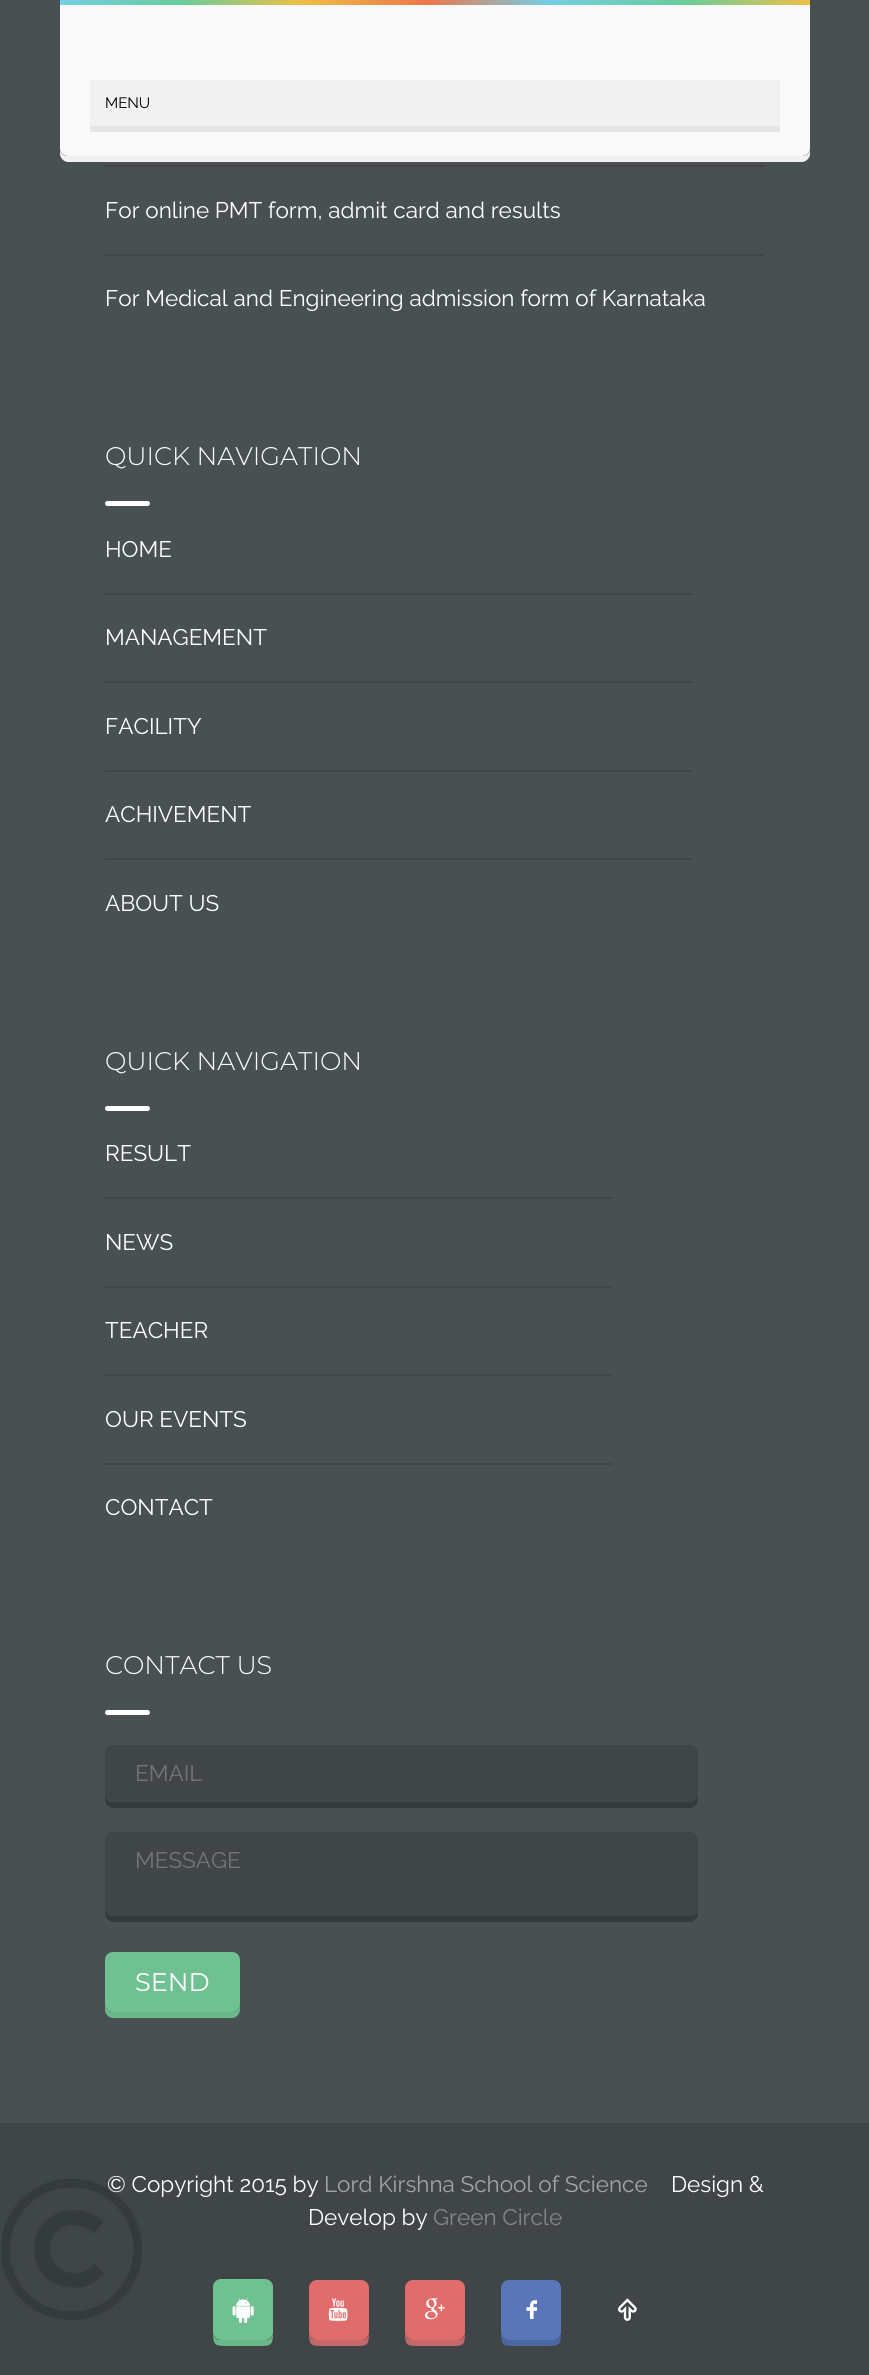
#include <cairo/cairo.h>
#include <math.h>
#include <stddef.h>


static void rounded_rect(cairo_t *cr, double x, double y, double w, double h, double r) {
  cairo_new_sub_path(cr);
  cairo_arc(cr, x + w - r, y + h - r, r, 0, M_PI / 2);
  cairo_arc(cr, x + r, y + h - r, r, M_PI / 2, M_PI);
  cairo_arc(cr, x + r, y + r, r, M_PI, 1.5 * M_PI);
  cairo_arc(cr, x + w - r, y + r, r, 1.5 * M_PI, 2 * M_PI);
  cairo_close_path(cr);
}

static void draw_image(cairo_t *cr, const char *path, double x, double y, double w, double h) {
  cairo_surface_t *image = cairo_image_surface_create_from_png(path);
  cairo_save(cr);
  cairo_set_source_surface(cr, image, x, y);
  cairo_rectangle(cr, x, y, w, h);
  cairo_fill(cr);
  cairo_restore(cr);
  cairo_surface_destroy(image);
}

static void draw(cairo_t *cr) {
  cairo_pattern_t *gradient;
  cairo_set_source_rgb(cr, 73 / 255.0, 80 / 255.0, 82 / 255.0);
  cairo_paint(cr);
  gradient = cairo_pattern_create_linear(60, 2.3, 810, 2.2);
  cairo_pattern_add_color_stop_rgba(gradient, 0, 116 / 255.0, 206 / 255.0, 228 / 255.0, 1);
  cairo_pattern_add_color_stop_rgba(gradient, 0.16, 102 / 255.0, 206 / 255.0, 156 / 255.0, 1);
  cairo_pattern_add_color_stop_rgba(gradient, 0.32, 237 / 255.0, 191 / 255.0, 71 / 255.0, 1);
  cairo_pattern_add_color_stop_rgba(gradient, 0.49, 236 / 255.0, 119 / 255.0, 75 / 255.0, 1);
  cairo_pattern_add_color_stop_rgba(gradient, 0.65, 116 / 255.0, 206 / 255.0, 228 / 255.0, 1);
  cairo_pattern_add_color_stop_rgba(gradient, 0.83, 102 / 255.0, 206 / 255.0, 156 / 255.0, 1);
  cairo_pattern_add_color_stop_rgba(gradient, 1, 237 / 255.0, 191 / 255.0, 71 / 255.0, 1);
  cairo_set_source(cr, gradient);
  cairo_pattern_destroy(gradient);
  cairo_rectangle(cr, 60, 0, 750, 5);
  cairo_fill(cr);
  cairo_set_source_rgb(cr, 241 / 255.0, 241 / 255.0, 241 / 255.0);
  cairo_new_path(cr);
  cairo_move_to(cr, 60, 148);
  cairo_line_to(cr, 60, 154);
  cairo_curve_to(cr, 60, 158, 64, 162, 68, 162);
  cairo_line_to(cr, 802, 162);
  cairo_curve_to(cr, 806, 162, 810, 158, 810, 154);
  cairo_line_to(cr, 810, 148);
  cairo_curve_to(cr, 810, 153, 807, 156, 802, 156);
  cairo_line_to(cr, 68, 156);
  cairo_curve_to(cr, 63, 156, 60, 153, 60, 148);
  cairo_close_path(cr);
  cairo_fill(cr);
  cairo_set_source_rgb(cr, 249 / 255.0, 249 / 255.0, 249 / 255.0);
  cairo_new_path(cr);
  cairo_move_to(cr, 60, 5);
  cairo_line_to(cr, 810, 5);
  cairo_line_to(cr, 810, 148);
  cairo_curve_to(cr, 810, 152.5, 806.5, 156, 802, 156);
  cairo_line_to(cr, 68, 156);
  cairo_curve_to(cr, 63.5, 156, 60, 152.5, 60, 148);
  cairo_close_path(cr);
  cairo_fill(cr);
  cairo_set_source_rgb(cr, 229 / 255.0, 229 / 255.0, 229 / 255.0);
  cairo_rectangle(cr, 90, 126, 690, 6);
  cairo_fill(cr);
  cairo_set_source_rgb(cr, 241 / 255.0, 241 / 255.0, 241 / 255.0);
  cairo_rectangle(cr, 90, 80, 690, 46);
  cairo_fill(cr);
  cairo_set_source_rgb(cr, 64 / 255.0, 69 / 255.0, 71 / 255.0);
  cairo_rectangle(cr, 105, 165, 660, 2);
  cairo_fill(cr);
  cairo_rectangle(cr, 105, 254, 660, 2);
  cairo_fill(cr);
  cairo_set_source_rgb(cr, 1, 1, 1);
  rounded_rect(cr, 105, 501, 45, 5, 2.5);
  cairo_fill(cr);
  cairo_set_source_rgb(cr, 64 / 255.0, 69 / 255.0, 71 / 255.0);
  cairo_rectangle(cr, 105, 593, 587, 2);
  cairo_fill(cr);
  cairo_rectangle(cr, 105, 681, 587, 2);
  cairo_fill(cr);
  cairo_rectangle(cr, 105, 770, 587, 2);
  cairo_fill(cr);
  cairo_rectangle(cr, 105, 858, 587, 2);
  cairo_fill(cr);
  cairo_set_source_rgb(cr, 1, 1, 1);
  rounded_rect(cr, 105, 1106, 45, 5, 2.5);
  cairo_fill(cr);
  cairo_set_source_rgb(cr, 64 / 255.0, 69 / 255.0, 71 / 255.0);
  cairo_rectangle(cr, 105, 1197, 507, 2);
  cairo_fill(cr);
  cairo_rectangle(cr, 105, 1286, 507, 2);
  cairo_fill(cr);
  cairo_rectangle(cr, 105, 1374, 507, 2);
  cairo_fill(cr);
  cairo_rectangle(cr, 105, 1463, 507, 2);
  cairo_fill(cr);
  cairo_set_source_rgb(cr, 1, 1, 1);
  rounded_rect(cr, 105, 1710, 45, 5, 2.5);
  cairo_fill(cr);
  cairo_set_source_rgb(cr, 53 / 255.0, 59 / 255.0, 61 / 255.0);
  cairo_new_path(cr);
  cairo_move_to(cr, 105, 1794);
  cairo_line_to(cr, 105, 1800);
  cairo_curve_to(cr, 105, 1804, 109, 1808, 113, 1808);
  cairo_line_to(cr, 690, 1808);
  cairo_curve_to(cr, 694, 1808, 698, 1804, 698, 1800);
  cairo_line_to(cr, 698, 1759);
  cairo_line_to(cr, 698, 1756);
  cairo_line_to(cr, 698, 1794);
  cairo_curve_to(cr, 698, 1798, 694, 1802, 690, 1802);
  cairo_line_to(cr, 112, 1802);
  cairo_curve_to(cr, 108, 1802, 105, 1798, 105, 1794);
  cairo_close_path(cr);
  cairo_fill(cr);
  cairo_set_source_rgb(cr, 64 / 255.0, 69 / 255.0, 71 / 255.0);
  rounded_rect(cr, 105, 1745, 593, 57, 8);
  cairo_fill(cr);
  cairo_set_source_rgb(cr, 53 / 255.0, 59 / 255.0, 61 / 255.0);
  cairo_new_path(cr);
  cairo_move_to(cr, 105, 1908);
  cairo_line_to(cr, 105, 1914);
  cairo_curve_to(cr, 105, 1918, 109, 1922, 113, 1922);
  cairo_line_to(cr, 690, 1922);
  cairo_curve_to(cr, 694, 1922, 698, 1918, 698, 1914);
  cairo_line_to(cr, 698, 1846);
  cairo_line_to(cr, 698, 1843);
  cairo_line_to(cr, 698, 1908);
  cairo_curve_to(cr, 698, 1912, 694, 1916, 690, 1916);
  cairo_line_to(cr, 112, 1916);
  cairo_curve_to(cr, 108, 1916, 105, 1912, 105, 1908);
  cairo_close_path(cr);
  cairo_fill(cr);
  cairo_set_source_rgb(cr, 64 / 255.0, 69 / 255.0, 71 / 255.0);
  rounded_rect(cr, 105, 1832, 593, 84, 8);
  cairo_fill(cr);
  cairo_set_source_rgb(cr, 106 / 255.0, 183 / 255.0, 138 / 255.0);
  cairo_new_path(cr);
  cairo_move_to(cr, 105, 2004);
  cairo_line_to(cr, 105, 2010);
  cairo_curve_to(cr, 105, 2014, 109, 2018, 113, 2018);
  cairo_line_to(cr, 232, 2018);
  cairo_curve_to(cr, 236, 2018, 240, 2014, 240, 2010);
  cairo_line_to(cr, 240, 2004);
  cairo_curve_to(cr, 240, 2008, 237, 2012, 232, 2012);
  cairo_line_to(cr, 112, 2012);
  cairo_curve_to(cr, 108, 2012, 105, 2008, 105, 2004);
  cairo_close_path(cr);
  cairo_fill(cr);
  cairo_set_source_rgb(cr, 111 / 255.0, 193 / 255.0, 145 / 255.0);
  rounded_rect(cr, 105, 1952, 135, 60, 8);
  cairo_fill(cr);
  cairo_set_source_rgb(cr, 64 / 255.0, 69 / 255.0, 71 / 255.0);
  cairo_rectangle(cr, 0, 2123, 869, 252);
  cairo_fill(cr);
  draw_image(cr, "images/1.png", 1, 2179, 141, 141);
  cairo_set_source_rgb(cr, 106 / 255.0, 183 / 255.0, 138 / 255.0);
  cairo_new_path(cr);
  cairo_move_to(cr, 213, 2332);
  cairo_curve_to(cr, 213, 2346, 215, 2346, 228, 2346);
  cairo_line_to(cr, 258, 2346);
  cairo_curve_to(cr, 271, 2346, 273, 2346, 273, 2332);
  cairo_curve_to(cr, 273, 2337, 270, 2340, 266, 2340);
  cairo_line_to(cr, 220, 2340);
  cairo_curve_to(cr, 216, 2340, 213, 2337, 213, 2332);
  cairo_close_path(cr);
  cairo_fill(cr);
  cairo_set_source_rgb(cr, 111 / 255.0, 193 / 255.0, 145 / 255.0);
  rounded_rect(cr, 213, 2279, 60, 61, 8);
  cairo_fill(cr);
  draw_image(cr, "images/2.png", 232, 2298, 22, 25);
  cairo_set_source_rgb(cr, 200 / 255.0, 105 / 255.0, 105 / 255.0);
  cairo_new_path(cr);
  cairo_move_to(cr, 309, 2332);
  cairo_curve_to(cr, 309, 2346, 311, 2346, 324, 2346);
  cairo_line_to(cr, 354, 2346);
  cairo_curve_to(cr, 367, 2346, 369, 2346, 369, 2332);
  cairo_curve_to(cr, 369, 2337, 366, 2340, 362, 2340);
  cairo_line_to(cr, 316, 2340);
  cairo_curve_to(cr, 312, 2340, 309, 2337, 309, 2332);
  cairo_close_path(cr);
  cairo_fill(cr);
  cairo_set_source_rgb(cr, 225 / 255.0, 108 / 255.0, 108 / 255.0);
  rounded_rect(cr, 309, 2280, 60, 60, 8);
  cairo_fill(cr);
  draw_image(cr, "images/3.png", 328, 2298, 20, 23);
  cairo_set_source_rgb(cr, 200 / 255.0, 105 / 255.0, 105 / 255.0);
  cairo_new_path(cr);
  cairo_move_to(cr, 405, 2332);
  cairo_curve_to(cr, 405, 2346, 407, 2346, 420, 2346);
  cairo_line_to(cr, 450, 2346);
  cairo_curve_to(cr, 463, 2346, 465, 2346, 465, 2332);
  cairo_curve_to(cr, 465, 2337, 462, 2340, 458, 2340);
  cairo_line_to(cr, 412, 2340);
  cairo_curve_to(cr, 408, 2340, 405, 2337, 405, 2332);
  cairo_close_path(cr);
  cairo_fill(cr);
  cairo_set_source_rgb(cr, 225 / 255.0, 108 / 255.0, 108 / 255.0);
  rounded_rect(cr, 405, 2280, 60, 60, 8);
  cairo_fill(cr);
  draw_image(cr, "images/4.png", 424, 2298, 21, 22);
  cairo_set_source_rgb(cr, 76 / 255.0, 103 / 255.0, 161 / 255.0);
  cairo_new_path(cr);
  cairo_move_to(cr, 501, 2332);
  cairo_curve_to(cr, 501, 2346, 503, 2346, 516, 2346);
  cairo_line_to(cr, 546, 2346);
  cairo_curve_to(cr, 559, 2346, 561, 2346, 561, 2332);
  cairo_curve_to(cr, 561, 2337, 558, 2340, 554, 2340);
  cairo_line_to(cr, 508, 2340);
  cairo_curve_to(cr, 504, 2340, 501, 2337, 501, 2332);
  cairo_close_path(cr);
  cairo_fill(cr);
  cairo_set_source_rgb(cr, 89 / 255.0, 119 / 255.0, 184 / 255.0);
  rounded_rect(cr, 501, 2280, 60, 60, 8);
  cairo_fill(cr);
  draw_image(cr, "images/5.png", 526, 2300, 12, 19);
  draw_image(cr, "images/6.png", 618, 2298, 19, 23);
  cairo_select_font_face(cr, "Raleway", CAIRO_FONT_SLANT_NORMAL, CAIRO_FONT_WEIGHT_NORMAL);
  cairo_set_font_size(cr, 15);
  cairo_set_source_rgb(cr, 0, 0, 0);
  cairo_move_to(cr, 105, 108);
  cairo_show_text(cr, "MENU");
  cairo_set_font_size(cr, 22.5);
  cairo_set_source_rgb(cr, 1, 1, 1);
  cairo_move_to(cr, 105, 218);
  cairo_show_text(cr, "For online PMT form, admit card and results");
  cairo_move_to(cr, 105, 306);
  cairo_show_text(cr, "For Medical and Engineering admission form of Karnataka");
  cairo_select_font_face(cr, "Montserrat Light", CAIRO_FONT_SLANT_NORMAL, CAIRO_FONT_WEIGHT_NORMAL);
  cairo_set_font_size(cr, 25.5);
  cairo_move_to(cr, 105, 465);
  cairo_show_text(cr, "QUICK NAVIGATION");
  cairo_select_font_face(cr, "Raleway", CAIRO_FONT_SLANT_NORMAL, CAIRO_FONT_WEIGHT_NORMAL);
  cairo_set_font_size(cr, 22.5);
  cairo_move_to(cr, 105, 557);
  cairo_show_text(cr, "HOME");
  cairo_move_to(cr, 105, 645);
  cairo_show_text(cr, "MANAGEMENT");
  cairo_move_to(cr, 105, 734);
  cairo_show_text(cr, "FACILITY");
  cairo_move_to(cr, 105, 822);
  cairo_show_text(cr, "ACHIVEMENT");
  cairo_move_to(cr, 105, 911);
  cairo_show_text(cr, "ABOUT US");
  cairo_select_font_face(cr, "Montserrat Light", CAIRO_FONT_SLANT_NORMAL, CAIRO_FONT_WEIGHT_NORMAL);
  cairo_set_font_size(cr, 25.5);
  cairo_move_to(cr, 105, 1070);
  cairo_show_text(cr, "QUICK NAVIGATION");
  cairo_select_font_face(cr, "Raleway", CAIRO_FONT_SLANT_NORMAL, CAIRO_FONT_WEIGHT_NORMAL);
  cairo_set_font_size(cr, 22.5);
  cairo_move_to(cr, 105, 1161);
  cairo_show_text(cr, "RESULT");
  cairo_move_to(cr, 105, 1250);
  cairo_show_text(cr, "NEWS");
  cairo_move_to(cr, 105, 1338);
  cairo_show_text(cr, "TEACHER");
  cairo_move_to(cr, 105, 1427);
  cairo_show_text(cr, "OUR EVENTS");
  cairo_move_to(cr, 105, 1515);
  cairo_show_text(cr, "CONTACT");
  cairo_select_font_face(cr, "Montserrat Light", CAIRO_FONT_SLANT_NORMAL, CAIRO_FONT_WEIGHT_NORMAL);
  cairo_set_font_size(cr, 25.5);
  cairo_move_to(cr, 105, 1674);
  cairo_show_text(cr, "CONTACT US");
  cairo_select_font_face(cr, "Raleway", CAIRO_FONT_SLANT_NORMAL, CAIRO_FONT_WEIGHT_NORMAL);
  cairo_set_font_size(cr, 22.5);
  cairo_set_source_rgb(cr, 117 / 255.0, 117 / 255.0, 117 / 255.0);
  cairo_move_to(cr, 135, 1781);
  cairo_show_text(cr, "EMAIL");
  cairo_move_to(cr, 135, 1868);
  cairo_show_text(cr, "MESSAGE");
  cairo_select_font_face(cr, "Montserrat", CAIRO_FONT_SLANT_NORMAL, CAIRO_FONT_WEIGHT_NORMAL);
  cairo_set_font_size(cr, 25.5);
  cairo_set_source_rgb(cr, 1, 1, 1);
  cairo_move_to(cr, 135, 1991);
  cairo_show_text(cr, "SEND");
  cairo_select_font_face(cr, "Raleway", CAIRO_FONT_SLANT_NORMAL, CAIRO_FONT_WEIGHT_NORMAL);
  cairo_set_font_size(cr, 22.5);
  cairo_move_to(cr, 107, 2192);
  cairo_show_text(cr, "© Copyright 2015 by");
  cairo_set_source_rgb(cr, 164 / 255.0, 164 / 255.0, 164 / 255.0);
  cairo_move_to(cr, 324, 2192);
  cairo_show_text(cr, "Lord Kirshna School of Science");
  cairo_set_source_rgb(cr, 1, 1, 1);
  cairo_move_to(cr, 671, 2192);
  cairo_show_text(cr, "Design &");
  cairo_move_to(cr, 308, 2225);
  cairo_show_text(cr, "Develop by");
  cairo_set_source_rgb(cr, 134 / 255.0, 133 / 255.0, 133 / 255.0);
  cairo_move_to(cr, 433, 2225);
  cairo_show_text(cr, "Green Circle");
}

int main(void) {
  cairo_surface_t *surface = cairo_image_surface_create(CAIRO_FORMAT_RGB24, 869, 2375);
  cairo_t *cr = cairo_create(surface);
  cairo_font_options_t *options = cairo_font_options_create();
  cairo_font_options_set_hint_metrics(options, CAIRO_HINT_METRICS_OFF);
  cairo_font_options_set_hint_style(options, CAIRO_HINT_STYLE_NONE);
  cairo_set_font_options(cr, options);
  cairo_set_miter_limit(cr, 4);
  draw(cr);
  cairo_surface_write_to_png(surface, "out.png");
  cairo_font_options_destroy(options);
  cairo_destroy(cr);
  cairo_surface_destroy(surface);
  return 0;
}
